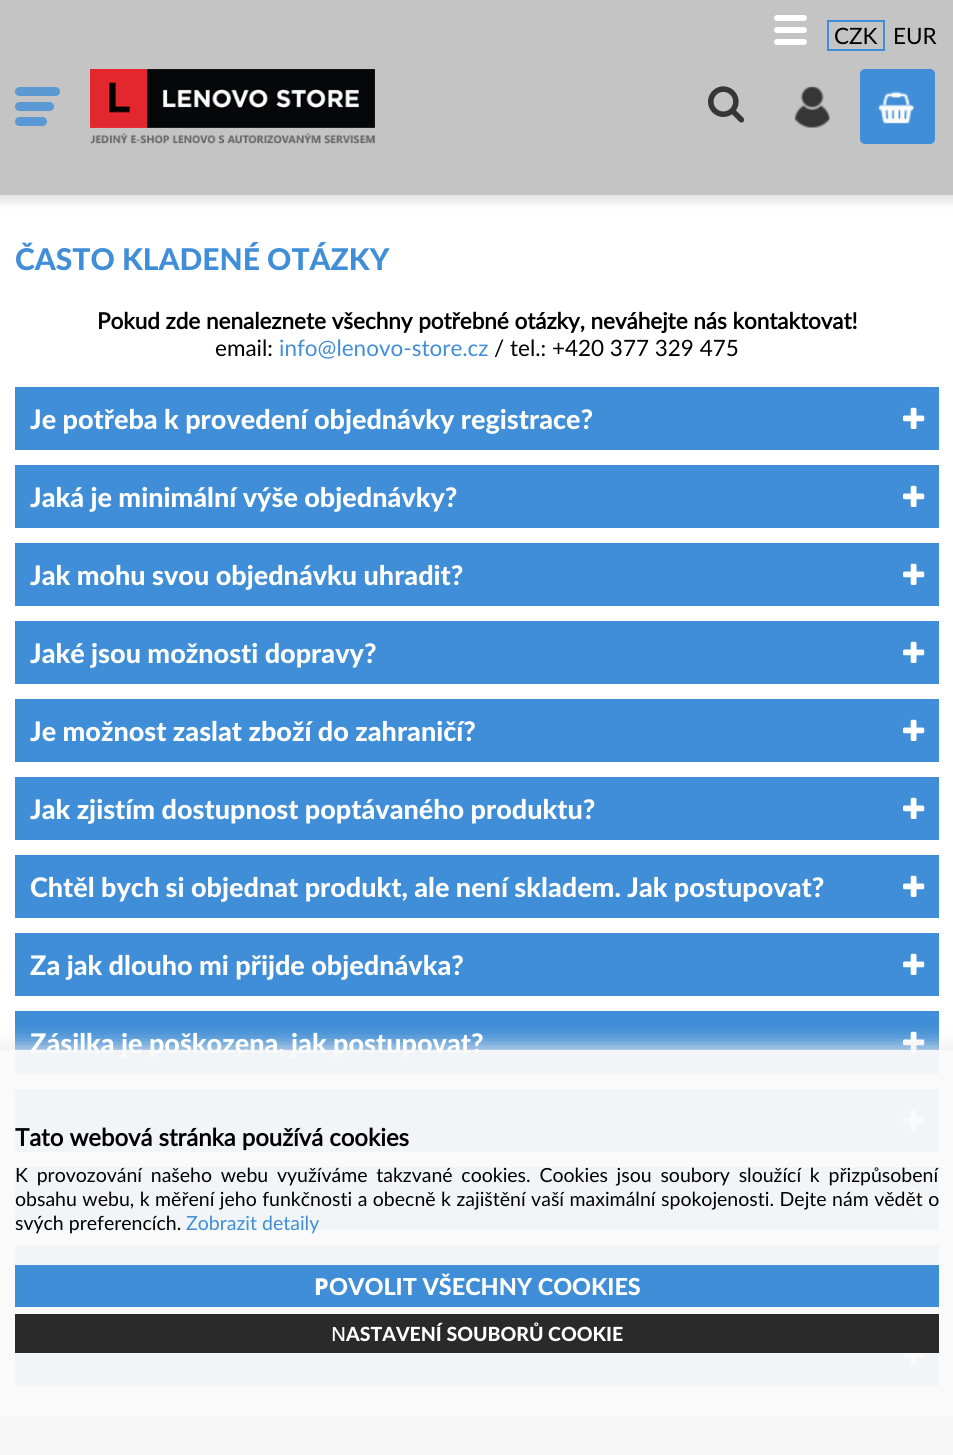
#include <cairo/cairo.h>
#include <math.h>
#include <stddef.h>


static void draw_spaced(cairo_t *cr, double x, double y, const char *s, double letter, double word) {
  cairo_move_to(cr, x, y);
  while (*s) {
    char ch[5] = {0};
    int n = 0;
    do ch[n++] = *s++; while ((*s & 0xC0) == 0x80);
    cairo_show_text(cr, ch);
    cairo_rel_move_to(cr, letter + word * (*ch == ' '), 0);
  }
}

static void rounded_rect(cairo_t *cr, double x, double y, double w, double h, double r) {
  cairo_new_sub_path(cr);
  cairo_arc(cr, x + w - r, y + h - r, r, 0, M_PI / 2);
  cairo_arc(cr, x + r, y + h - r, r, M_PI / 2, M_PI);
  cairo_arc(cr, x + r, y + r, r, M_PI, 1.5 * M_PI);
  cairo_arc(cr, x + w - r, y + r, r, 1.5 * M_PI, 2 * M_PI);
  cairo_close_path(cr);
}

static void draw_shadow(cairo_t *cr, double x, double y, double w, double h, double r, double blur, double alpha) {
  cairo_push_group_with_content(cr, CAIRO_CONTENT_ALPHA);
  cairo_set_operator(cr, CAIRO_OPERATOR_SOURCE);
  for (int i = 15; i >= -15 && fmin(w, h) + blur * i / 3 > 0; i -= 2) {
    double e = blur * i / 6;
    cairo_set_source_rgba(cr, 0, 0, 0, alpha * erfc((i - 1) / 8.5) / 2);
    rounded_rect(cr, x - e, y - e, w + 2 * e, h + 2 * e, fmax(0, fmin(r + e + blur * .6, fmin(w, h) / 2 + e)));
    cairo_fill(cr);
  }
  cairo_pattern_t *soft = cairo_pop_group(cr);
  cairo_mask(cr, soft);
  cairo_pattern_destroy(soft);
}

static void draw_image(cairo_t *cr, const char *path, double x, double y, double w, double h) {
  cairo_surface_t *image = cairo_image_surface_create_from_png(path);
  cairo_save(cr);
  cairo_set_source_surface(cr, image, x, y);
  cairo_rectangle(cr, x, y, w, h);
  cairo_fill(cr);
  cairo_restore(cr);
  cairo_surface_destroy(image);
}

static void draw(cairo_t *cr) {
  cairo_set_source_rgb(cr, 1, 1, 1);
  cairo_paint(cr);
  cairo_set_source_rgb(cr, 0, 0, 0);
  draw_shadow(cr, -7, -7, 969, 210, 0, 4, 0.1);
  cairo_set_source_rgb(cr, 196 / 255.0, 196 / 255.0, 196 / 255.0);
  cairo_rectangle(cr, 0, 0, 953, 195);
  cairo_fill(cr);
  cairo_set_source_rgb(cr, 1, 1, 1);
  rounded_rect(cr, 774, 15, 33, 6, 3);
  cairo_fill(cr);
  rounded_rect(cr, 774, 27, 33, 6, 3);
  cairo_fill(cr);
  rounded_rect(cr, 774, 39, 33, 6, 3);
  cairo_fill(cr);
  cairo_rectangle(cr, 828, 21, 56, 29);
  cairo_set_source_rgb(cr, 64 / 255.0, 142 / 255.0, 215 / 255.0);
  cairo_stroke(cr);
  cairo_set_source_rgb(cr, 90 / 255.0, 153 / 255.0, 211 / 255.0);
  rounded_rect(cr, 15, 87, 45, 9, 4.5);
  cairo_fill(cr);
  rounded_rect(cr, 15, 102, 39, 9, 4.5);
  cairo_fill(cr);
  rounded_rect(cr, 15, 117, 32, 9, 4.5);
  cairo_fill(cr);
  draw_image(cr, "images/1.png", 90, 69, 285, 75);
  draw_image(cr, "images/2.png", 708, 86, 37, 37);
  draw_image(cr, "images/3.png", 794, 86, 36, 42);
  cairo_set_source_rgb(cr, 64 / 255.0, 142 / 255.0, 215 / 255.0);
  rounded_rect(cr, 860, 69, 75, 75, 5);
  cairo_fill(cr);
  draw_image(cr, "images/4.png", 878, 91, 36, 33);
  cairo_rectangle(cr, 15, 387, 924, 63);
  cairo_fill(cr);
  draw_image(cr, "images/5.png", 903, 407, 22, 22);
  cairo_rectangle(cr, 15, 465, 924, 63);
  cairo_fill(cr);
  draw_image(cr, "images/5.png", 903, 485, 22, 22);
  cairo_rectangle(cr, 15, 543, 924, 63);
  cairo_fill(cr);
  draw_image(cr, "images/5.png", 903, 563, 22, 22);
  cairo_rectangle(cr, 15, 621, 924, 63);
  cairo_fill(cr);
  draw_image(cr, "images/5.png", 903, 641, 22, 22);
  cairo_rectangle(cr, 15, 699, 924, 63);
  cairo_fill(cr);
  draw_image(cr, "images/5.png", 903, 719, 22, 22);
  cairo_rectangle(cr, 15, 777, 924, 63);
  cairo_fill(cr);
  draw_image(cr, "images/5.png", 903, 797, 22, 22);
  cairo_rectangle(cr, 15, 855, 924, 63);
  cairo_fill(cr);
  draw_image(cr, "images/5.png", 903, 875, 22, 22);
  cairo_rectangle(cr, 15, 933, 924, 63);
  cairo_fill(cr);
  draw_image(cr, "images/5.png", 903, 953, 22, 22);
  cairo_rectangle(cr, 15, 1011, 924, 63);
  cairo_fill(cr);
  draw_image(cr, "images/5.png", 903, 1031, 22, 22);
  cairo_rectangle(cr, 15, 1089, 924, 63);
  cairo_fill(cr);
  draw_image(cr, "images/5.png", 903, 1109, 22, 22);
  cairo_rectangle(cr, 15, 1167, 924, 63);
  cairo_fill(cr);
  draw_image(cr, "images/5.png", 903, 1187, 22, 22);
  cairo_rectangle(cr, 15, 1245, 924, 63);
  cairo_fill(cr);
  cairo_rectangle(cr, 15, 1353, 924, 33);
  cairo_fill(cr);
  draw_image(cr, "images/6.png", 903, 1353, 22, 12);
  cairo_set_source_rgb(cr, 196 / 255.0, 196 / 255.0, 196 / 255.0);
  cairo_rectangle(cr, 0, 1416, 953, 39);
  cairo_fill(cr);
  draw_image(cr, "images/7.png", 55, 1453, 18, 2);
  cairo_save(cr);
  cairo_rectangle(cr, 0, 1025, 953, 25);
  cairo_clip(cr);
  cairo_set_source_rgb(cr, 234 / 255.0, 234 / 255.0, 234 / 255.0);
  draw_shadow(cr, -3, 1047, 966, 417, 0, 10.5, 1);
  cairo_restore(cr);
  cairo_select_font_face(cr, "Lato", CAIRO_FONT_SLANT_NORMAL, CAIRO_FONT_WEIGHT_NORMAL);
  cairo_set_font_size(cr, 22.5);
  cairo_set_source_rgb(cr, 0, 0, 0);
  cairo_move_to(cr, 834, 44);
  cairo_show_text(cr, "CZK");
  cairo_move_to(cr, 893, 44);
  cairo_show_text(cr, "EUR");
  cairo_select_font_face(cr, "Lato Black", CAIRO_FONT_SLANT_NORMAL, CAIRO_FONT_WEIGHT_NORMAL);
  cairo_set_font_size(cr, 30);
  cairo_set_source_rgb(cr, 64 / 255.0, 142 / 255.0, 215 / 255.0);
  cairo_move_to(cr, 15, 270);
  cairo_show_text(cr, "ČASTO KLADENÉ OTÁZKY");
  cairo_select_font_face(cr, "Lato", CAIRO_FONT_SLANT_NORMAL, CAIRO_FONT_WEIGHT_BOLD);
  cairo_set_font_size(cr, 22.5);
  cairo_set_source_rgb(cr, 0, 0, 0);
  cairo_move_to(cr, 97, 329);
  cairo_show_text(cr, "Pokud zde nenaleznete všechny potřebné otázky, neváhejte nás kontaktovat!");
  cairo_select_font_face(cr, "Lato", CAIRO_FONT_SLANT_NORMAL, CAIRO_FONT_WEIGHT_NORMAL);
  cairo_move_to(cr, 215, 356);
  cairo_show_text(cr, "email:");
  cairo_set_source_rgb(cr, 64 / 255.0, 142 / 255.0, 215 / 255.0);
  cairo_move_to(cr, 279, 356);
  cairo_show_text(cr, "info@lenovo-store.cz");
  cairo_set_source_rgb(cr, 0, 0, 0);
  cairo_move_to(cr, 494, 356);
  cairo_show_text(cr, "/ tel.: +420 377 329 475");
  cairo_select_font_face(cr, "Lato Black", CAIRO_FONT_SLANT_NORMAL, CAIRO_FONT_WEIGHT_NORMAL);
  cairo_set_font_size(cr, 27);
  cairo_set_source_rgb(cr, 1, 1, 1);
  cairo_move_to(cr, 30, 429);
  cairo_show_text(cr, "Je potřeba k provedení objednávky registrace?");
  cairo_move_to(cr, 30, 507);
  cairo_show_text(cr, "Jaká je minimální výše objednávky?");
  cairo_move_to(cr, 30, 585);
  cairo_show_text(cr, "Jak mohu svou objednávku uhradit?");
  cairo_move_to(cr, 30, 663);
  cairo_show_text(cr, "Jaké jsou možnosti dopravy?");
  cairo_move_to(cr, 30, 741);
  cairo_show_text(cr, "Je možnost zaslat zboží do zahraničí?");
  cairo_move_to(cr, 30, 819);
  cairo_show_text(cr, "Jak zjistím dostupnost poptávaného produktu?");
  cairo_move_to(cr, 30, 897);
  cairo_show_text(cr, "Chtěl bych si objednat produkt, ale není skladem. Jak postupovat?");
  cairo_move_to(cr, 30, 975);
  cairo_show_text(cr, "Za jak dlouho mi přijde objednávka?");
  cairo_move_to(cr, 30, 1053);
  cairo_show_text(cr, "Zásilka je poškozena, jak postupovat?");
  cairo_set_source_rgba(cr, 250 / 255.0, 250 / 255.0, 250 / 255.0, 0.95);
  cairo_rectangle(cr, 0, 1050, 953, 405);
  cairo_fill(cr);
  cairo_select_font_face(cr, "Lato", CAIRO_FONT_SLANT_NORMAL, CAIRO_FONT_WEIGHT_BOLD);
  cairo_set_font_size(cr, 24);
  cairo_set_source_rgb(cr, 0, 0, 0);
  cairo_move_to(cr, 15, 1146);
  cairo_show_text(cr, "Tato webová stránka používá cookies");
  cairo_select_font_face(cr, "Lato", CAIRO_FONT_SLANT_NORMAL, CAIRO_FONT_WEIGHT_NORMAL);
  cairo_set_font_size(cr, 19.5);
  draw_spaced(cr, 15, 1182, "K provozování našeho webu využíváme takzvané cookies. Cookies jsou soubory sloužící k přizpůsobení", 0, 3.75);
  draw_spaced(cr, 15, 1206, "obsahu webu, k měření jeho funkčnosti a obecně k zajištění vaší maximální spokojenosti. Dejte nám vědět o", 0, 0.5);
  cairo_move_to(cr, 15, 1230);
  cairo_show_text(cr, "svých preferencích.");
  cairo_set_source_rgb(cr, 64 / 255.0, 142 / 255.0, 215 / 255.0);
  cairo_move_to(cr, 186, 1230);
  cairo_show_text(cr, "Zobrazit detaily");
  cairo_rectangle(cr, 15, 1265, 924, 42);
  cairo_fill(cr);
  cairo_select_font_face(cr, "Noto Sans ExtraBold", CAIRO_FONT_SLANT_NORMAL, CAIRO_FONT_WEIGHT_NORMAL);
  cairo_set_font_size(cr, 23.4);
  cairo_set_source_rgb(cr, 1, 1, 1);
  cairo_move_to(cr, 314, 1295);
  cairo_show_text(cr, "P");
  cairo_select_font_face(cr, "Lato Black", CAIRO_FONT_SLANT_NORMAL, CAIRO_FONT_WEIGHT_NORMAL);
  cairo_move_to(cr, 329, 1295);
  cairo_show_text(cr, "OVOLIT VŠECHNY COOKIES");
  cairo_set_source_rgb(cr, 42 / 255.0, 42 / 255.0, 42 / 255.0);
  cairo_rectangle(cr, 15, 1314, 924, 39);
  cairo_fill(cr);
  cairo_select_font_face(cr, "Noto Sans Medium", CAIRO_FONT_SLANT_NORMAL, CAIRO_FONT_WEIGHT_NORMAL);
  cairo_set_font_size(cr, 19.5);
  cairo_set_source_rgb(cr, 1, 1, 1);
  cairo_move_to(cr, 331, 1341);
  cairo_show_text(cr, "N");
  cairo_select_font_face(cr, "Lato Black", CAIRO_FONT_SLANT_NORMAL, CAIRO_FONT_WEIGHT_NORMAL);
  cairo_move_to(cr, 346, 1341);
  cairo_show_text(cr, "ASTAVENÍ SOUBORŮ COOKIE");
}

int main(void) {
  cairo_surface_t *surface = cairo_image_surface_create(CAIRO_FORMAT_RGB24, 953, 1455);
  cairo_t *cr = cairo_create(surface);
  cairo_font_options_t *options = cairo_font_options_create();
  cairo_font_options_set_hint_metrics(options, CAIRO_HINT_METRICS_OFF);
  cairo_font_options_set_hint_style(options, CAIRO_HINT_STYLE_NONE);
  cairo_set_font_options(cr, options);
  cairo_set_miter_limit(cr, 4);
  draw(cr);
  cairo_surface_write_to_png(surface, "out.png");
  cairo_font_options_destroy(options);
  cairo_destroy(cr);
  cairo_surface_destroy(surface);
  return 0;
}
